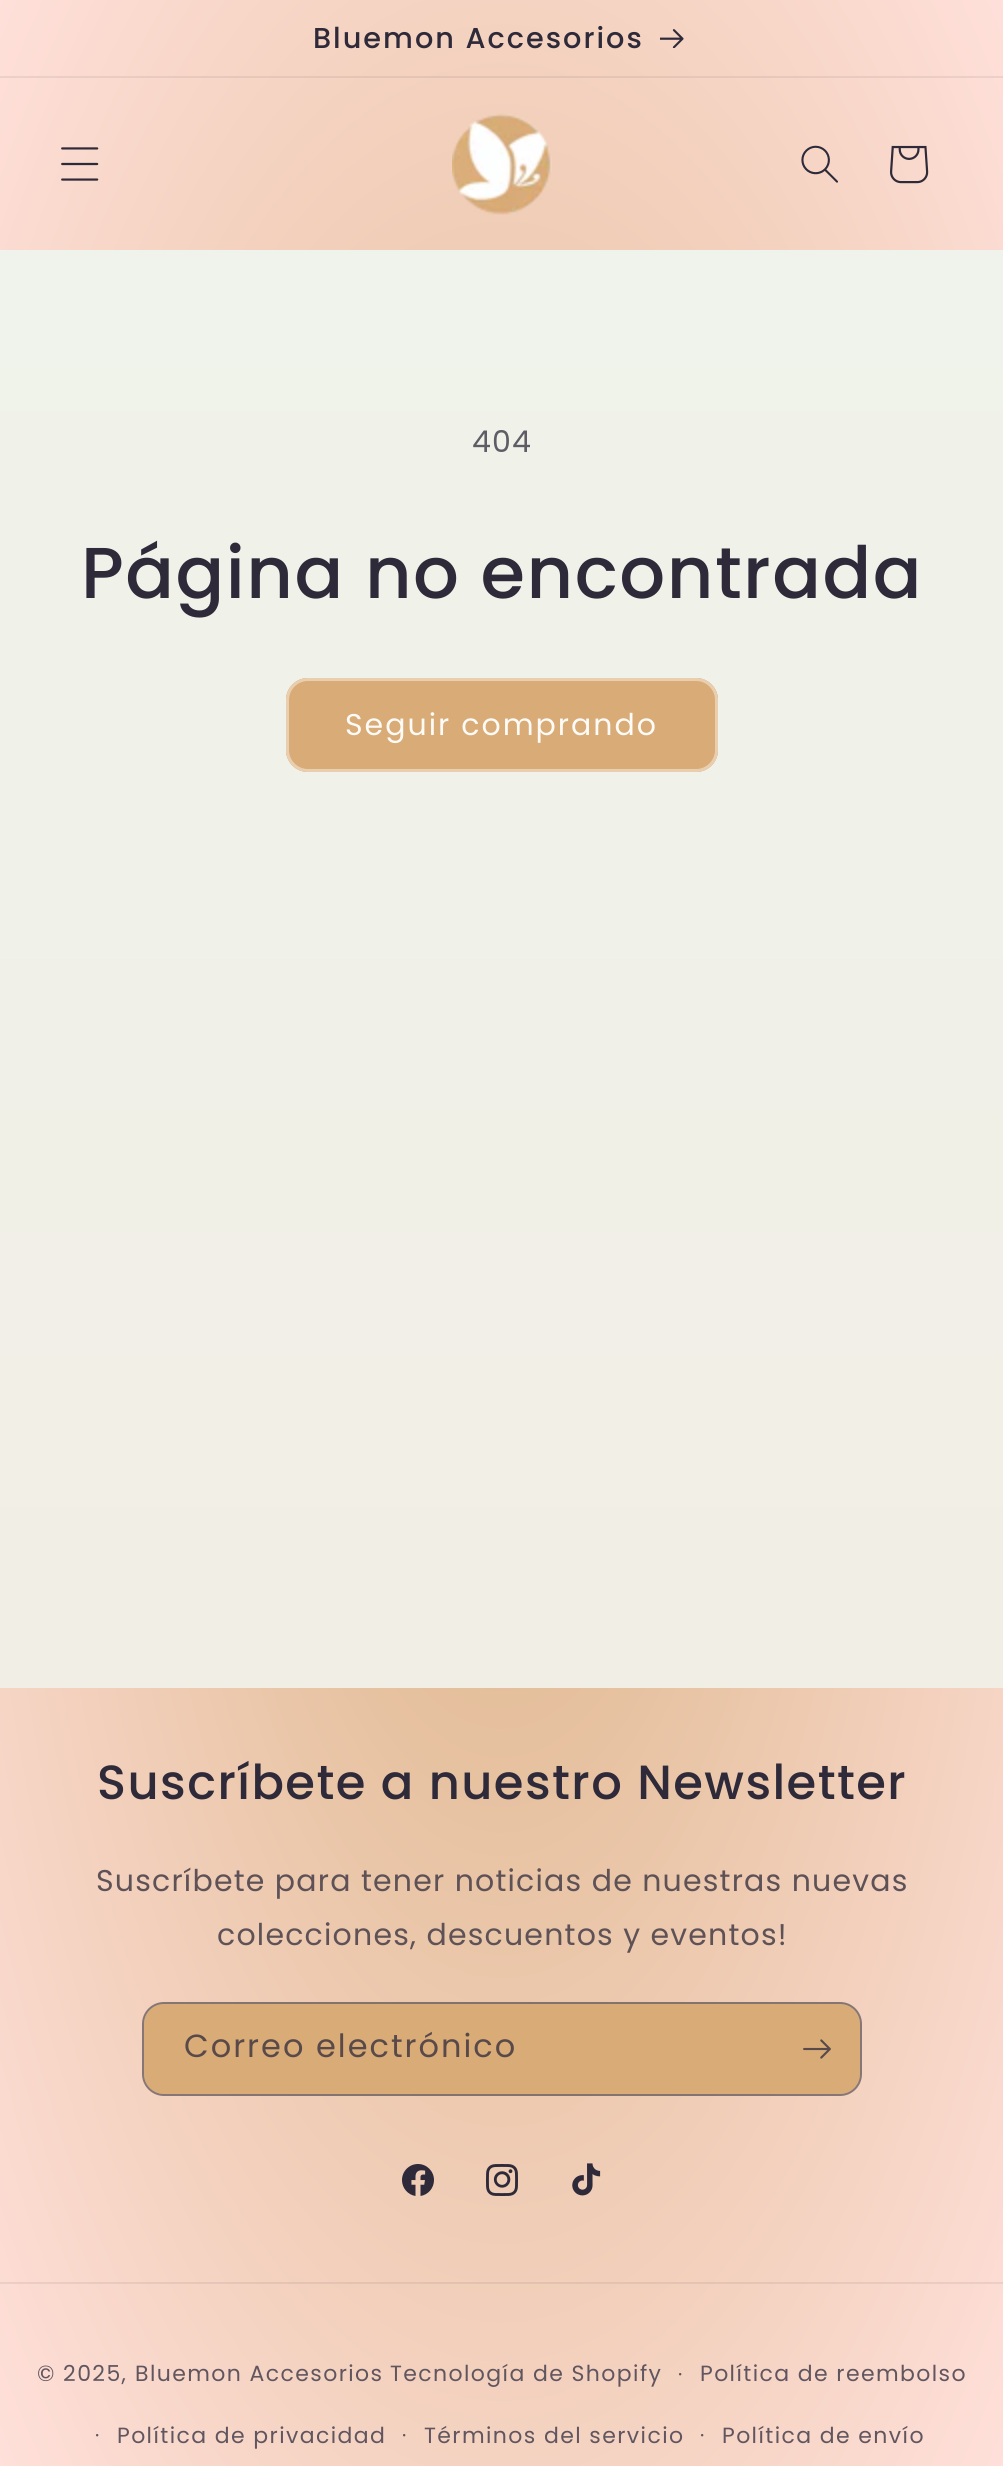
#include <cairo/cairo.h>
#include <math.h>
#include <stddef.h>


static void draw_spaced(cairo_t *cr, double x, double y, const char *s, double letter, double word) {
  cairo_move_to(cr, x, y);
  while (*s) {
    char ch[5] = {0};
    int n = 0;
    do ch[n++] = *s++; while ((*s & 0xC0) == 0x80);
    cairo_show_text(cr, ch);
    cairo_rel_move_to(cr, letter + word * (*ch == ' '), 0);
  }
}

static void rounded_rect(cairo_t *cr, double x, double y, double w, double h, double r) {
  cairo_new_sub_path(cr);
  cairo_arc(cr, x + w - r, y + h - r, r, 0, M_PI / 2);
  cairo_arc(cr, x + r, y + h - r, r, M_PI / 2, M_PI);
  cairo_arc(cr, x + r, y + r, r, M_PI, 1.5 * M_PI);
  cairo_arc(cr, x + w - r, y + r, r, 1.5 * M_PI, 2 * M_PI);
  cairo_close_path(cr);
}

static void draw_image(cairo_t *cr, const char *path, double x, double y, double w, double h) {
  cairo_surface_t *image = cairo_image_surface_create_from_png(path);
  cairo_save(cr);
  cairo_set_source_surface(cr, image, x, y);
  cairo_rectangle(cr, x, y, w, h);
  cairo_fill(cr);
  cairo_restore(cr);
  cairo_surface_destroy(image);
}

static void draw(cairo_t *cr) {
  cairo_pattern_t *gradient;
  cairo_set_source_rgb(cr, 1, 1, 1);
  cairo_paint(cr);
  gradient = cairo_pattern_create_linear(502, 0, 502, 2466);
  cairo_pattern_add_color_stop_rgba(gradient, 0, 240 / 255.0, 244 / 255.0, 236 / 255.0, 1);
  cairo_pattern_add_color_stop_rgba(gradient, 1, 241 / 255.0, 235 / 255.0, 226 / 255.0, 1);
  cairo_set_source(cr, gradient);
  cairo_pattern_destroy(gradient);
  cairo_rectangle(cr, 0, 250, 1003, 1438);
  cairo_fill(cr);
  gradient = cairo_pattern_create_radial(0, 0, 0, 0, 0, 1);
  cairo_pattern_set_matrix(gradient, &(cairo_matrix_t){1.0 / 710, 0, 0, 1.0 / 1744, -1.0 * 502 / 710, -1.0 * 1233 / 1744});
  cairo_pattern_add_color_stop_rgba(gradient, 0, 220 / 255.0, 180 / 255.0, 135 / 255.0, 1);
  cairo_pattern_add_color_stop_rgba(gradient, 1, 1, 224 / 255.0, 218 / 255.0, 1);
  cairo_pattern_add_color_stop_rgba(gradient, 1, 219 / 255.0, 225 / 255.0, 208 / 255.0, 1);
  cairo_set_source(cr, gradient);
  cairo_pattern_destroy(gradient);
  cairo_rectangle(cr, 0, 0, 1003, 76);
  cairo_fill(cr);
  gradient = cairo_pattern_create_radial(0, 0, 0, 0, 0, 1);
  cairo_pattern_set_matrix(gradient, &(cairo_matrix_t){1.0 / 710, 0, 0, 1.0 / 1744, -1.0 * 502 / 710, -1.0 * 1233 / 1744});
  cairo_pattern_add_color_stop_rgba(gradient, 0, 206 / 255.0, 169 / 255.0, 129 / 255.0, 1);
  cairo_pattern_add_color_stop_rgba(gradient, 1, 238 / 255.0, 209 / 255.0, 205 / 255.0, 1);
  cairo_pattern_add_color_stop_rgba(gradient, 1, 205 / 255.0, 210 / 255.0, 196 / 255.0, 1);
  cairo_set_source(cr, gradient);
  cairo_pattern_destroy(gradient);
  cairo_rectangle(cr, 0, 76, 1003, 2);
  cairo_fill(cr);
  draw_image(cr, "images/1.png", 660, 29, 24, 19);
  gradient = cairo_pattern_create_radial(0, 0, 0, 0, 0, 1);
  cairo_pattern_set_matrix(gradient, &(cairo_matrix_t){1.0 / 710, 0, 0, 1.0 / 1744, -1.0 * 502 / 710, -1.0 * 1233 / 1744});
  cairo_pattern_add_color_stop_rgba(gradient, 0, 220 / 255.0, 180 / 255.0, 135 / 255.0, 1);
  cairo_pattern_add_color_stop_rgba(gradient, 1, 1, 224 / 255.0, 218 / 255.0, 1);
  cairo_pattern_add_color_stop_rgba(gradient, 1, 219 / 255.0, 225 / 255.0, 208 / 255.0, 1);
  cairo_set_source(cr, gradient);
  cairo_pattern_destroy(gradient);
  cairo_rectangle(cr, 0, 78, 1003, 172);
  cairo_fill(cr);
  draw_image(cr, "images/2.png", 61, 147, 38, 34);
  draw_image(cr, "images/3.png", 452, 113, 100, 102);
  draw_image(cr, "images/4.png", 801, 145, 37, 38);
  draw_image(cr, "images/5.png", 890, 145, 39, 39);
  cairo_set_source_rgb(cr, 217 / 255.0, 171 / 255.0, 119 / 255.0);
  rounded_rect(cr, 286, 678, 432, 94, 22);
  cairo_fill(cr);
  rounded_rect(cr, 287, 679, 430, 92, 21);
  cairo_stroke(cr);
  rounded_rect(cr, 287.5, 679.5, 429, 91, 20.5);
  cairo_set_source_rgba(cr, 253 / 255.0, 251 / 255.0, 247 / 255.0, 0.45);
  cairo_set_line_width(cr, 3);
  cairo_stroke(cr);
  gradient = cairo_pattern_create_radial(0, 0, 0, 0, 0, 1);
  cairo_pattern_set_matrix(gradient, &(cairo_matrix_t){1.0 / 710, 0, 0, 1.0 / 1744, -1.0 * 502 / 710, -1.0 * 1233 / 1744});
  cairo_pattern_add_color_stop_rgba(gradient, 0, 220 / 255.0, 180 / 255.0, 135 / 255.0, 1);
  cairo_pattern_add_color_stop_rgba(gradient, 1, 1, 224 / 255.0, 218 / 255.0, 1);
  cairo_pattern_add_color_stop_rgba(gradient, 1, 219 / 255.0, 225 / 255.0, 208 / 255.0, 1);
  cairo_set_source(cr, gradient);
  cairo_pattern_destroy(gradient);
  cairo_rectangle(cr, 0, 1688, 1003, 420);
  cairo_fill(cr);
  cairo_set_source_rgb(cr, 217 / 255.0, 171 / 255.0, 119 / 255.0);
  rounded_rect(cr, 144, 2004, 716, 90, 20);
  cairo_fill(cr);
  rounded_rect(cr, 143, 2003, 718, 92, 21);
  cairo_set_source_rgba(cr, 46 / 255.0, 42 / 255.0, 57 / 255.0, 0.55);
  cairo_set_line_width(cr, 2);
  cairo_stroke(cr);
  draw_image(cr, "images/6.png", 803, 2039, 28, 20);
  gradient = cairo_pattern_create_radial(0, 0, 0, 0, 0, 1);
  cairo_pattern_set_matrix(gradient, &(cairo_matrix_t){1.0 / 710, 0, 0, 1.0 / 1744, -1.0 * 502 / 710, -1.0 * 1233 / 1744});
  cairo_pattern_add_color_stop_rgba(gradient, 0, 220 / 255.0, 180 / 255.0, 135 / 255.0, 1);
  cairo_pattern_add_color_stop_rgba(gradient, 1, 1, 224 / 255.0, 218 / 255.0, 1);
  cairo_pattern_add_color_stop_rgba(gradient, 1, 219 / 255.0, 225 / 255.0, 208 / 255.0, 1);
  cairo_set_source(cr, gradient);
  cairo_pattern_destroy(gradient);
  cairo_rectangle(cr, 0, 2108, 1003, 358);
  cairo_fill(cr);
  gradient = cairo_pattern_create_radial(0, 0, 0, 0, 0, 1);
  cairo_pattern_set_matrix(gradient, &(cairo_matrix_t){1.0 / 710, 0, 0, 1.0 / 1744, -1.0 * 502 / 710, -1.0 * 1233 / 1744});
  cairo_pattern_add_color_stop_rgba(gradient, 0, 206 / 255.0, 169 / 255.0, 129 / 255.0, 1);
  cairo_pattern_add_color_stop_rgba(gradient, 1, 238 / 255.0, 209 / 255.0, 205 / 255.0, 1);
  cairo_pattern_add_color_stop_rgba(gradient, 1, 205 / 255.0, 210 / 255.0, 196 / 255.0, 1);
  cairo_set_source(cr, gradient);
  cairo_pattern_destroy(gradient);
  cairo_rectangle(cr, 0, 2282, 1003, 2);
  cairo_fill(cr);
  draw_image(cr, "images/7.png", 402, 2164, 32, 32);
  draw_image(cr, "images/8.png", 486, 2164, 32, 32);
  draw_image(cr, "images/9.png", 572, 2163, 29, 33);
  cairo_select_font_face(cr, "Poppins Medium", CAIRO_FONT_SLANT_NORMAL, CAIRO_FONT_WEIGHT_NORMAL);
  cairo_set_font_size(cr, 28.75);
  cairo_set_source_rgb(cr, 46 / 255.0, 42 / 255.0, 57 / 255.0);
  draw_spaced(cr, 313, 48, "Bluemon Accesorios", 2, 0);
  cairo_select_font_face(cr, "Poppins", CAIRO_FONT_SLANT_NORMAL, CAIRO_FONT_WEIGHT_NORMAL);
  cairo_set_font_size(cr, 30);
  cairo_set_source_rgb(cr, 95 / 255.0, 92 / 255.0, 101 / 255.0);
  draw_spaced(cr, 472, 452, "404", 1.2, 0);
  cairo_select_font_face(cr, "Poppins Medium", CAIRO_FONT_SLANT_NORMAL, CAIRO_FONT_WEIGHT_NORMAL);
  cairo_set_font_size(cr, 72);
  cairo_set_source_rgb(cr, 46 / 255.0, 42 / 255.0, 57 / 255.0);
  draw_spaced(cr, 81, 598, "Página no encontrada", 1.45, 0);
  cairo_select_font_face(cr, "Poppins", CAIRO_FONT_SLANT_NORMAL, CAIRO_FONT_WEIGHT_NORMAL);
  cairo_set_font_size(cr, 30);
  cairo_set_source_rgb(cr, 253 / 255.0, 251 / 255.0, 247 / 255.0);
  draw_spaced(cr, 345, 735, "Seguir comprando", 2, 0);
  cairo_select_font_face(cr, "Poppins Medium", CAIRO_FONT_SLANT_NORMAL, CAIRO_FONT_WEIGHT_NORMAL);
  cairo_set_font_size(cr, 48);
  cairo_set_source_rgb(cr, 46 / 255.0, 42 / 255.0, 57 / 255.0);
  draw_spaced(cr, 97, 1799, "Suscríbete a nuestro Newsletter", 1.45, 0);
  cairo_select_font_face(cr, "Poppins", CAIRO_FONT_SLANT_NORMAL, CAIRO_FONT_WEIGHT_NORMAL);
  cairo_set_font_size(cr, 30);
  cairo_set_source_rgb(cr, 94 / 255.0, 82 / 255.0, 87 / 255.0);
  draw_spaced(cr, 96, 1891, "Suscríbete para tener noticias de nuestras nuevas", 1.2, 0);
  draw_spaced(cr, 217, 1945, "colecciones, descuentos y eventos!", 1.2, 0);
  cairo_set_font_size(cr, 32);
  cairo_set_source_rgb(cr, 89 / 255.0, 74 / 255.0, 73 / 255.0);
  draw_spaced(cr, 184, 2057, "Correo electrónico", 2, 0);
  cairo_set_font_size(cr, 20);
  cairo_set_source_rgb(cr, 97 / 255.0, 86 / 255.0, 95 / 255.0);
  draw_spaced(cr, 678, 2381, "·", 1.4, 0);
  cairo_set_font_size(cr, 22);
  draw_spaced(cr, 700, 2381, "Política de reembolso", 1.4, 0);
  cairo_set_font_size(cr, 20);
  draw_spaced(cr, 95, 2442, "·", 1.4, 0);
  cairo_set_font_size(cr, 22);
  draw_spaced(cr, 117, 2443, "Política de privacidad", 1.4, 0);
  cairo_set_font_size(cr, 20);
  draw_spaced(cr, 402, 2442, "·", 1.4, 0);
  cairo_set_font_size(cr, 22);
  draw_spaced(cr, 424, 2443, "Términos del servicio", 1.4, 0);
  cairo_set_font_size(cr, 20);
  draw_spaced(cr, 700, 2442, "·", 1.4, 0);
  cairo_set_font_size(cr, 22);
  draw_spaced(cr, 722, 2443, "Política de envío", 1.4, 0);
  draw_spaced(cr, 37, 2381, "© 2025,", 1.4, 0);
  draw_spaced(cr, 135, 2381, "Bluemon Accesorios", 1.4, 0);
  draw_spaced(cr, 390, 2381, "Tecnología de Shopify", 1.4, 0);
}

int main(void) {
  cairo_surface_t *surface = cairo_image_surface_create(CAIRO_FORMAT_RGB24, 1003, 2466);
  cairo_t *cr = cairo_create(surface);
  cairo_font_options_t *options = cairo_font_options_create();
  cairo_font_options_set_hint_metrics(options, CAIRO_HINT_METRICS_OFF);
  cairo_font_options_set_hint_style(options, CAIRO_HINT_STYLE_NONE);
  cairo_set_font_options(cr, options);
  cairo_set_miter_limit(cr, 4);
  draw(cr);
  cairo_surface_write_to_png(surface, "out.png");
  cairo_font_options_destroy(options);
  cairo_destroy(cr);
  cairo_surface_destroy(surface);
  return 0;
}
